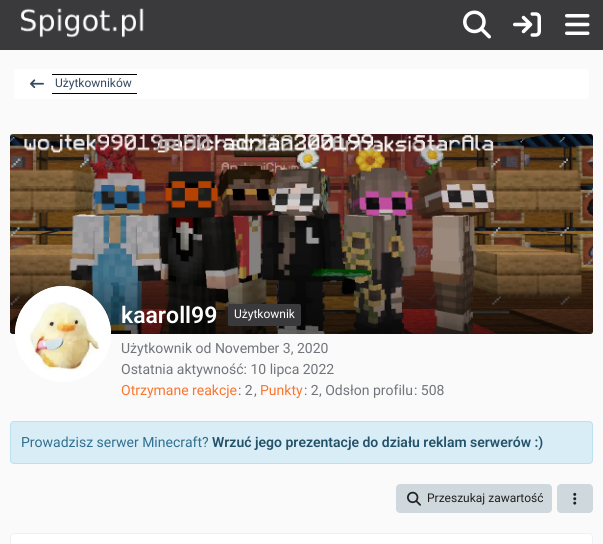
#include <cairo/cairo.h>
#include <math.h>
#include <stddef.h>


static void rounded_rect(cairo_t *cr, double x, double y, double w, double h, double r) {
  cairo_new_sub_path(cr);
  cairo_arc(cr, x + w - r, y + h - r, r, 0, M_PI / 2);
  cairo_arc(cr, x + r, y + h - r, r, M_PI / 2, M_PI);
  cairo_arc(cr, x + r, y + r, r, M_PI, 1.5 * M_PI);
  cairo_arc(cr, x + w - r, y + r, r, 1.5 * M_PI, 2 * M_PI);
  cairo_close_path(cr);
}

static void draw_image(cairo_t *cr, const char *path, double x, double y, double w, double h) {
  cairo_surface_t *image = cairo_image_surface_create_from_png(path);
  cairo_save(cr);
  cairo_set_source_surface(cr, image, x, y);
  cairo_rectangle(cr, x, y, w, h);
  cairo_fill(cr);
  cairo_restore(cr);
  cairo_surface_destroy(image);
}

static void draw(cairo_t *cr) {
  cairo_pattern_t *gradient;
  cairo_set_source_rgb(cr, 250 / 255.0, 250 / 255.0, 250 / 255.0);
  cairo_paint(cr);
  cairo_set_source_rgb(cr, 58 / 255.0, 58 / 255.0, 61 / 255.0);
  cairo_rectangle(cr, 0, 0, 603, 50);
  cairo_fill(cr);
  draw_image(cr, "images/1.png", 20, 8, 124, 30);
  draw_image(cr, "images/2.png", 463, 10, 28, 29);
  draw_image(cr, "images/3.png", 513, 12, 28, 25);
  draw_image(cr, "images/4.png", 565, 14, 25, 21);
  cairo_set_source_rgb(cr, 1, 1, 1);
  rounded_rect(cr, 14, 69, 575, 30, 4);
  cairo_fill(cr);
  draw_image(cr, "images/5.png", 30, 79, 14, 10);
  cairo_set_source_rgb(cr, 0, 0, 0);
  cairo_rectangle(cr, 52, 74, 85, 1);
  cairo_fill(cr);
  cairo_rectangle(cr, 52, 93, 85, 1);
  cairo_fill(cr);
  draw_image(cr, "images/6.png", 10, 134, 583, 200);
  gradient = cairo_pattern_create_linear(302, 134, 302, 334);
  cairo_pattern_add_color_stop_rgba(gradient, 0.7, 0, 0, 0, 0);
  cairo_pattern_add_color_stop_rgba(gradient, 1, 0, 0, 0, 0.5);
  cairo_set_source(cr, gradient);
  cairo_pattern_destroy(gradient);
  cairo_new_path(cr);
  cairo_move_to(cr, 10, 134);
  cairo_line_to(cr, 593, 134);
  cairo_line_to(cr, 593, 331);
  cairo_curve_to(cr, 593, 332.5, 591.5, 334, 590, 334);
  cairo_line_to(cr, 13, 334);
  cairo_curve_to(cr, 11.5, 334, 10, 332.5, 10, 331);
  cairo_close_path(cr);
  cairo_fill(cr);
  cairo_set_source_rgb(cr, 1, 1, 1);
  cairo_arc(cr, 63, 334, 48, 0, 2 * M_PI);
  cairo_fill(cr);
  draw_image(cr, "images/7.png", 15, 286, 96, 85);
  cairo_set_source_rgb(cr, 58 / 255.0, 58 / 255.0, 61 / 255.0);
  rounded_rect(cr, 228, 304, 73, 22, 2);
  cairo_fill(cr);
  cairo_set_source_rgb(cr, 217 / 255.0, 237 / 255.0, 247 / 255.0);
  rounded_rect(cr, 10.5, 421.5, 582, 42, 3.5);
  cairo_fill_preserve(cr);
  cairo_set_source_rgb(cr, 188 / 255.0, 223 / 255.0, 241 / 255.0);
  cairo_set_line_width(cr, 1);
  cairo_stroke(cr);
  cairo_set_source_rgb(cr, 207 / 255.0, 216 / 255.0, 220 / 255.0);
  rounded_rect(cr, 396, 484, 156, 29, 4);
  cairo_fill(cr);
  draw_image(cr, "images/8.png", 407, 491, 14, 15);
  rounded_rect(cr, 557, 484, 36, 29, 4);
  cairo_fill(cr);
  draw_image(cr, "images/9.png", 573, 492, 4, 13);
  cairo_set_source_rgb(cr, 1, 1, 1);
  rounded_rect(cr, 10.5, 533.5, 582, 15, 3.5);
  cairo_fill_preserve(cr);
  cairo_set_source_rgb(cr, 236 / 255.0, 241 / 255.0, 247 / 255.0);
  cairo_stroke(cr);
  cairo_select_font_face(cr, "Roboto", CAIRO_FONT_SLANT_NORMAL, CAIRO_FONT_WEIGHT_NORMAL);
  cairo_set_font_size(cr, 12);
  cairo_set_source_rgb(cr, 52 / 255.0, 73 / 255.0, 94 / 255.0);
  cairo_move_to(cr, 55, 87);
  cairo_show_text(cr, "Użytkowników");
  cairo_select_font_face(cr, "Roboto SemiBold", CAIRO_FONT_SLANT_NORMAL, CAIRO_FONT_WEIGHT_NORMAL);
  cairo_set_font_size(cr, 23);
  cairo_set_source_rgb(cr, 1, 1, 1);
  cairo_move_to(cr, 121, 323);
  cairo_show_text(cr, "kaaroll99");
  cairo_select_font_face(cr, "Roboto", CAIRO_FONT_SLANT_NORMAL, CAIRO_FONT_WEIGHT_NORMAL);
  cairo_set_font_size(cr, 12);
  cairo_move_to(cr, 234, 318);
  cairo_show_text(cr, "Użytkownik");
  cairo_set_font_size(cr, 14);
  cairo_set_source_rgb(cr, 113 / 255.0, 117 / 255.0, 122 / 255.0);
  cairo_move_to(cr, 121, 353);
  cairo_show_text(cr, "Użytkownik od November 3, 2020");
  cairo_move_to(cr, 121, 374);
  cairo_show_text(cr, "Ostatnia aktywność: 10 lipca 2022");
  cairo_set_source_rgb(cr, 250 / 255.0, 117 / 255.0, 46 / 255.0);
  cairo_move_to(cr, 121, 395);
  cairo_show_text(cr, "Otrzymane reakcje");
  cairo_set_source_rgb(cr, 113 / 255.0, 117 / 255.0, 122 / 255.0);
  cairo_move_to(cr, 238, 395);
  cairo_show_text(cr, ": 2");
  cairo_move_to(cr, 254, 395);
  cairo_show_text(cr, ",");
  cairo_set_source_rgb(cr, 250 / 255.0, 117 / 255.0, 46 / 255.0);
  cairo_move_to(cr, 260, 395);
  cairo_show_text(cr, "Punkty");
  cairo_set_source_rgb(cr, 113 / 255.0, 117 / 255.0, 122 / 255.0);
  cairo_move_to(cr, 304, 395);
  cairo_show_text(cr, ": 2");
  cairo_move_to(cr, 319, 395);
  cairo_show_text(cr, ", Odsłon profilu");
  cairo_move_to(cr, 414, 395);
  cairo_show_text(cr, ": 508");
  cairo_set_source_rgb(cr, 49 / 255.0, 112 / 255.0, 143 / 255.0);
  cairo_move_to(cr, 21, 447);
  cairo_show_text(cr, "Prowadzisz serwer Minecraft?");
  cairo_select_font_face(cr, "Roboto SemiBold", CAIRO_FONT_SLANT_NORMAL, CAIRO_FONT_WEIGHT_NORMAL);
  cairo_set_source_rgb(cr, 36 / 255.0, 82 / 255.0, 105 / 255.0);
  cairo_move_to(cr, 212, 447);
  cairo_show_text(cr, "Wrzuć jego prezentacje do działu reklam serwerów :)");
  cairo_select_font_face(cr, "Roboto", CAIRO_FONT_SLANT_NORMAL, CAIRO_FONT_WEIGHT_NORMAL);
  cairo_set_font_size(cr, 12);
  cairo_set_source_rgb(cr, 33 / 255.0, 33 / 255.0, 33 / 255.0);
  cairo_move_to(cr, 427, 502);
  cairo_show_text(cr, "Przeszukaj zawartość");
}

int main(void) {
  cairo_surface_t *surface = cairo_image_surface_create(CAIRO_FORMAT_RGB24, 603, 544);
  cairo_t *cr = cairo_create(surface);
  cairo_font_options_t *options = cairo_font_options_create();
  cairo_font_options_set_hint_metrics(options, CAIRO_HINT_METRICS_OFF);
  cairo_font_options_set_hint_style(options, CAIRO_HINT_STYLE_NONE);
  cairo_set_font_options(cr, options);
  cairo_set_miter_limit(cr, 4);
  draw(cr);
  cairo_surface_write_to_png(surface, "out.png");
  cairo_font_options_destroy(options);
  cairo_destroy(cr);
  cairo_surface_destroy(surface);
  return 0;
}
